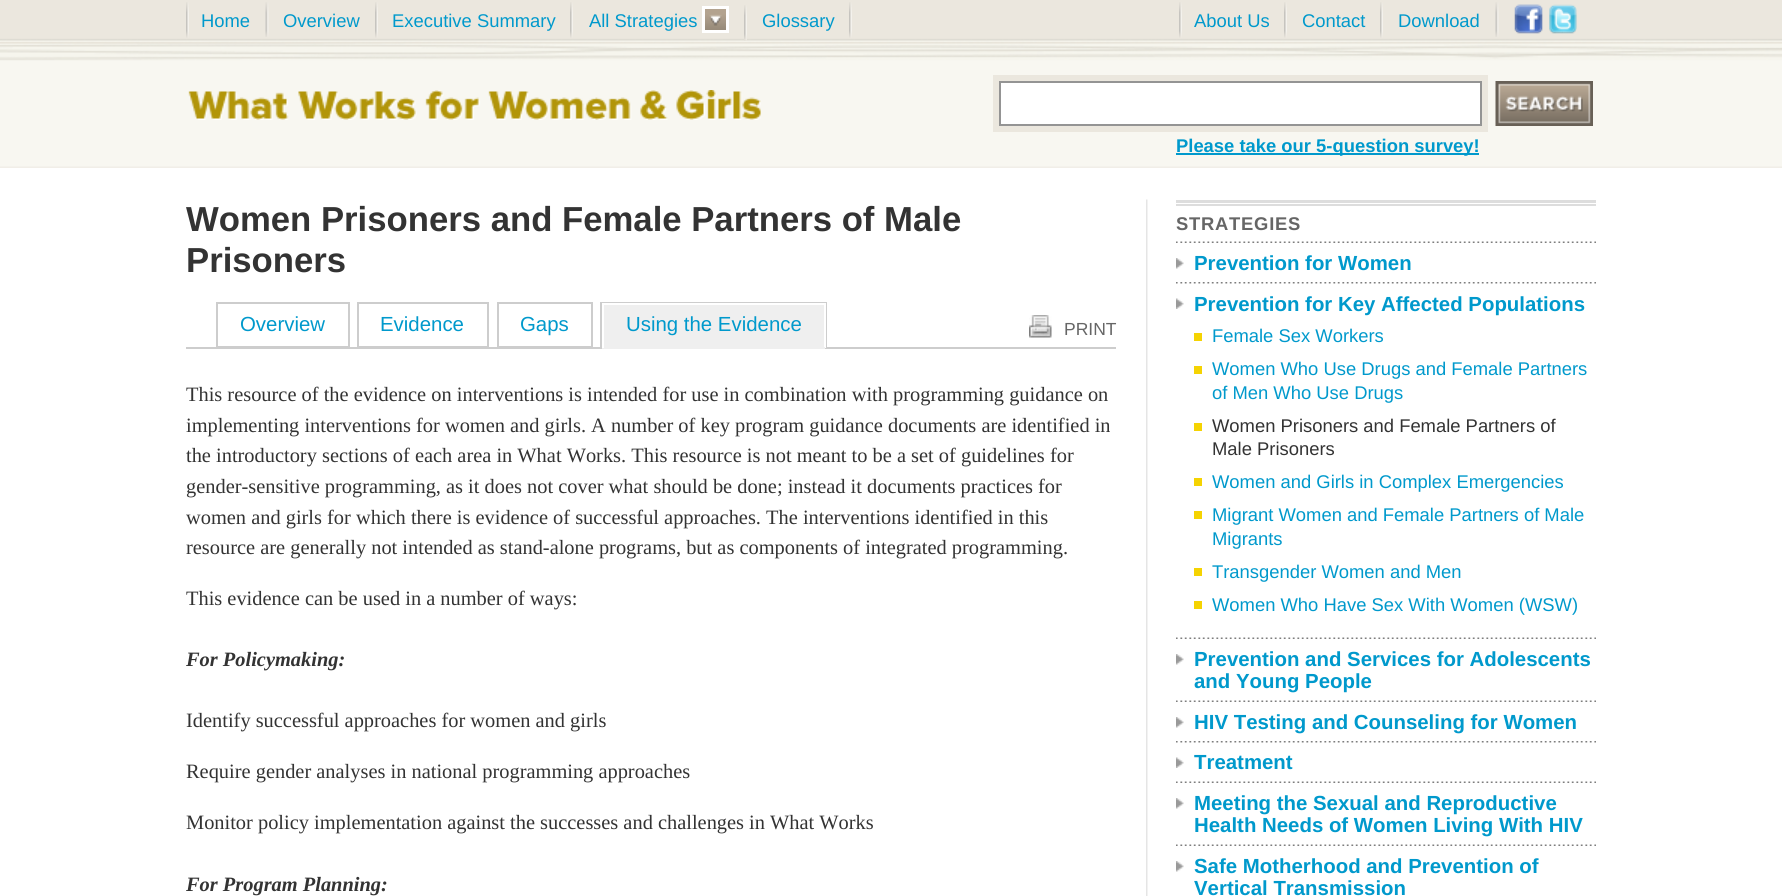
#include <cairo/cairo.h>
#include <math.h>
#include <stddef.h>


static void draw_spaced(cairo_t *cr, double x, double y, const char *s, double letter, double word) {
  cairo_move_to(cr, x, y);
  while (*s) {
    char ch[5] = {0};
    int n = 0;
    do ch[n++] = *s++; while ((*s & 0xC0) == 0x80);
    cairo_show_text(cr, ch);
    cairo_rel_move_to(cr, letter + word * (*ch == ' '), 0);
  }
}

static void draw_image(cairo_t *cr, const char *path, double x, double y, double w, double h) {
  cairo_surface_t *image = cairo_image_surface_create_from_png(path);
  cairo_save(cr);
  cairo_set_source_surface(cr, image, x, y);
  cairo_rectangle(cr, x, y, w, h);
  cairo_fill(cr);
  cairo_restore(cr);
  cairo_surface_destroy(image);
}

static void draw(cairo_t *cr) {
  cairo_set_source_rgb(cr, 1, 1, 1);
  cairo_paint(cr);
  draw_image(cr, "images/1.png", 0, 0, 1782, 168);
  draw_image(cr, "images/2.png", 186, 2, 3, 36);
  draw_image(cr, "images/3.png", 265, 2, 4, 35);
  draw_image(cr, "images/4.png", 375, 2, 3, 36);
  draw_image(cr, "images/4.png", 570, 2, 3, 36);
  draw_image(cr, "images/5.png", 744, 5, 3, 36);
  cairo_rectangle(cr, 703.5, 7.5, 24, 24);
  cairo_set_source_rgb(cr, 1, 1, 1);
  cairo_set_line_width(cr, 3);
  cairo_stroke(cr);
  draw_image(cr, "images/6.png", 705, 9, 21, 21);
  draw_image(cr, "images/2.png", 849, 2, 3, 36);
  draw_image(cr, "images/4.png", 1179, 2, 3, 36);
  draw_image(cr, "images/4.png", 1284, 2, 3, 36);
  draw_image(cr, "images/2.png", 1380, 2, 3, 36);
  draw_image(cr, "images/3.png", 1495, 2, 4, 35);
  draw_image(cr, "images/7.png", 1514, 4, 29, 30);
  draw_image(cr, "images/8.png", 1549, 4, 28, 30);
  draw_image(cr, "images/9.png", 188, 90, 573, 30);
  cairo_set_source_rgb(cr, 235 / 255.0, 231 / 255.0, 222 / 255.0);
  cairo_rectangle(cr, 993, 75, 495, 57);
  cairo_fill(cr);
  cairo_set_source_rgb(cr, 1, 1, 1);
  cairo_rectangle(cr, 1000, 82, 481, 43);
  cairo_fill_preserve(cr);
  cairo_set_source_rgb(cr, 148 / 255.0, 148 / 255.0, 148 / 255.0);
  cairo_set_line_width(cr, 2);
  cairo_stroke(cr);
  draw_image(cr, "images/10.png", 1495, 81, 98, 45);
  cairo_set_source_rgb(cr, 0, 153 / 255.0, 204 / 255.0);
  cairo_rectangle(cr, 1176, 153, 303, 2);
  cairo_fill(cr);
  draw_image(cr, "images/11.png", 1146, 199, 2, 697);
  cairo_set_source_rgb(cr, 205 / 255.0, 205 / 255.0, 205 / 255.0);
  cairo_rectangle(cr, 186, 347, 930, 2);
  cairo_fill(cr);
  cairo_rectangle(cr, 217, 303, 132, 44);
  cairo_stroke(cr);
  cairo_rectangle(cr, 358, 303, 130, 44);
  cairo_stroke(cr);
  cairo_rectangle(cr, 498, 303, 94, 44);
  cairo_stroke(cr);
  cairo_rectangle(cr, 600, 302, 227, 1);
  cairo_fill(cr);
  cairo_rectangle(cr, 825, 302, 2, 46);
  cairo_fill(cr);
  cairo_rectangle(cr, 600, 302, 2, 46);
  cairo_fill(cr);
  cairo_set_source_rgb(cr, 239 / 255.0, 239 / 255.0, 239 / 255.0);
  cairo_rectangle(cr, 604, 305, 220, 42);
  cairo_fill(cr);
  cairo_set_source_rgb(cr, 1, 1, 1);
  cairo_rectangle(cr, 824, 303, 2, 45);
  cairo_fill(cr);
  cairo_set_source_rgb(cr, 239 / 255.0, 239 / 255.0, 239 / 255.0);
  cairo_rectangle(cr, 602, 347, 223, 2);
  cairo_fill(cr);
  cairo_set_source_rgb(cr, 1, 1, 1);
  cairo_rectangle(cr, 602, 347, 2, 1);
  cairo_fill(cr);
  draw_image(cr, "images/12.png", 1029, 315, 23, 23);
  cairo_set_source_rgb(cr, 221 / 255.0, 221 / 255.0, 221 / 255.0);
  cairo_rectangle(cr, 1176, 200, 420, 3);
  cairo_fill(cr);
  cairo_rectangle(cr, 1176, 204, 420, 2);
  cairo_fill(cr);
  draw_image(cr, "images/13.png", 1176, 241, 420, 2);
  draw_image(cr, "images/14.png", 1176, 258, 8, 11);
  draw_image(cr, "images/15.png", 1176, 282, 420, 2);
  draw_image(cr, "images/16.png", 1176, 298, 8, 11);
  cairo_set_source_rgb(cr, 245 / 255.0, 211 / 255.0, 2 / 255.0);
  cairo_rectangle(cr, 1194, 333, 8, 8);
  cairo_fill(cr);
  cairo_rectangle(cr, 1194, 366, 8, 8);
  cairo_fill(cr);
  cairo_rectangle(cr, 1194, 423, 8, 8);
  cairo_fill(cr);
  cairo_rectangle(cr, 1194, 478, 8, 8);
  cairo_fill(cr);
  cairo_rectangle(cr, 1194, 511, 8, 8);
  cairo_fill(cr);
  cairo_rectangle(cr, 1194, 568, 8, 8);
  cairo_fill(cr);
  cairo_rectangle(cr, 1194, 601, 8, 8);
  cairo_fill(cr);
  draw_image(cr, "images/13.png", 1176, 637, 420, 2);
  draw_image(cr, "images/14.png", 1176, 654, 8, 11);
  draw_image(cr, "images/13.png", 1176, 700, 420, 2);
  draw_image(cr, "images/14.png", 1176, 717, 8, 11);
  draw_image(cr, "images/15.png", 1176, 741, 420, 2);
  draw_image(cr, "images/16.png", 1176, 757, 8, 11);
  draw_image(cr, "images/13.png", 1176, 781, 420, 2);
  draw_image(cr, "images/14.png", 1176, 798, 8, 11);
  draw_image(cr, "images/13.png", 1176, 844, 420, 2);
  draw_image(cr, "images/14.png", 1176, 861, 8, 11);
  cairo_select_font_face(cr, "Liberation Sans", CAIRO_FONT_SLANT_NORMAL, CAIRO_FONT_WEIGHT_NORMAL);
  cairo_set_font_size(cr, 18.4);
  cairo_set_source_rgb(cr, 0, 153 / 255.0, 204 / 255.0);
  cairo_move_to(cr, 201, 27);
  cairo_show_text(cr, "Home");
  cairo_move_to(cr, 283, 27);
  cairo_show_text(cr, "Overview");
  cairo_move_to(cr, 392, 27);
  cairo_show_text(cr, "Executive Summary");
  cairo_move_to(cr, 589, 27);
  cairo_show_text(cr, "All Strategies");
  cairo_move_to(cr, 762, 27);
  cairo_show_text(cr, "Glossary");
  cairo_move_to(cr, 1194, 27);
  cairo_show_text(cr, "About Us");
  cairo_move_to(cr, 1302, 27);
  cairo_show_text(cr, "Contact");
  cairo_move_to(cr, 1398, 27);
  cairo_show_text(cr, "Download");
  cairo_select_font_face(cr, "Liberation Sans", CAIRO_FONT_SLANT_NORMAL, CAIRO_FONT_WEIGHT_BOLD);
  cairo_move_to(cr, 1176, 152);
  cairo_show_text(cr, "Please take our 5-question survey!");
  cairo_set_font_size(cr, 34.7);
  cairo_set_source_rgb(cr, 51 / 255.0, 51 / 255.0, 51 / 255.0);
  cairo_move_to(cr, 186, 231);
  cairo_show_text(cr, "Women Prisoners and Female Partners of Male");
  cairo_move_to(cr, 186, 272);
  cairo_show_text(cr, "Prisoners");
  cairo_select_font_face(cr, "Liberation Sans", CAIRO_FONT_SLANT_NORMAL, CAIRO_FONT_WEIGHT_NORMAL);
  cairo_set_font_size(cr, 20.4);
  cairo_set_source_rgb(cr, 0, 153 / 255.0, 204 / 255.0);
  cairo_move_to(cr, 240, 331);
  cairo_show_text(cr, "Overview");
  cairo_move_to(cr, 380, 331);
  cairo_show_text(cr, "Evidence");
  cairo_move_to(cr, 520, 331);
  cairo_show_text(cr, "Gaps");
  cairo_move_to(cr, 626, 331);
  cairo_show_text(cr, "Using the Evidence");
  cairo_set_font_size(cr, 17.5);
  cairo_set_source_rgb(cr, 102 / 255.0, 102 / 255.0, 102 / 255.0);
  cairo_move_to(cr, 1064, 335);
  cairo_show_text(cr, "PRINT");
  cairo_select_font_face(cr, "Liberation Serif", CAIRO_FONT_SLANT_NORMAL, CAIRO_FONT_WEIGHT_NORMAL);
  cairo_set_font_size(cr, 20.4);
  cairo_set_source_rgb(cr, 51 / 255.0, 51 / 255.0, 51 / 255.0);
  cairo_move_to(cr, 186, 401);
  cairo_show_text(cr, "This resource of the evidence on interventions is intended for use in combination with programming guidance on");
  cairo_move_to(cr, 186, 432);
  cairo_show_text(cr, "implementing interventions for women and girls. A number of key program guidance documents are identified in");
  cairo_move_to(cr, 186, 462);
  cairo_show_text(cr, "the introductory sections of each area in What Works. This resource is not meant to be a set of guidelines for");
  cairo_move_to(cr, 186, 493);
  cairo_show_text(cr, "gender-sensitive programming, as it does not cover what should be done; instead it documents practices for");
  cairo_move_to(cr, 186, 524);
  cairo_show_text(cr, "women and girls for which there is evidence of successful approaches. The interventions identified in this");
  cairo_move_to(cr, 186, 554);
  cairo_show_text(cr, "resource are generally not intended as stand-alone programs, but as components of integrated programming.");
  cairo_move_to(cr, 186, 605);
  cairo_show_text(cr, "This evidence can be used in a number of ways:");
  cairo_select_font_face(cr, "Liberation Serif", CAIRO_FONT_SLANT_ITALIC, CAIRO_FONT_WEIGHT_BOLD);
  cairo_move_to(cr, 186, 666);
  cairo_show_text(cr, "For Policymaking:");
  cairo_select_font_face(cr, "Liberation Serif", CAIRO_FONT_SLANT_NORMAL, CAIRO_FONT_WEIGHT_NORMAL);
  cairo_move_to(cr, 186, 727);
  cairo_show_text(cr, "Identify successful approaches for women and girls");
  cairo_move_to(cr, 186, 778);
  cairo_show_text(cr, "Require gender analyses in national programming approaches");
  cairo_move_to(cr, 186, 829);
  cairo_show_text(cr, "Monitor policy implementation against the successes and challenges in What Works");
  cairo_select_font_face(cr, "Liberation Serif", CAIRO_FONT_SLANT_ITALIC, CAIRO_FONT_WEIGHT_BOLD);
  cairo_move_to(cr, 186, 891);
  cairo_show_text(cr, "For Program Planning:");
  cairo_select_font_face(cr, "Liberation Sans", CAIRO_FONT_SLANT_NORMAL, CAIRO_FONT_WEIGHT_BOLD);
  cairo_set_font_size(cr, 18.4);
  cairo_set_source_rgb(cr, 102 / 255.0, 102 / 255.0, 102 / 255.0);
  draw_spaced(cr, 1176, 230, "STRATEGIES", 0.75, 0);
  cairo_set_font_size(cr, 20.4);
  cairo_set_source_rgb(cr, 0, 153 / 255.0, 204 / 255.0);
  cairo_move_to(cr, 1194, 270);
  cairo_show_text(cr, "Prevention for Women");
  cairo_move_to(cr, 1194, 311);
  cairo_show_text(cr, "Prevention for Key Affected Populations");
  cairo_select_font_face(cr, "Liberation Sans", CAIRO_FONT_SLANT_NORMAL, CAIRO_FONT_WEIGHT_NORMAL);
  cairo_set_font_size(cr, 18.4);
  cairo_move_to(cr, 1212, 342);
  cairo_show_text(cr, "Female Sex Workers");
  cairo_move_to(cr, 1212, 375);
  cairo_show_text(cr, "Women Who Use Drugs and Female Partners");
  cairo_move_to(cr, 1212, 399);
  cairo_show_text(cr, "of Men Who Use Drugs");
  cairo_set_source_rgb(cr, 51 / 255.0, 51 / 255.0, 51 / 255.0);
  cairo_move_to(cr, 1212, 432);
  cairo_show_text(cr, "Women Prisoners and Female Partners of");
  cairo_move_to(cr, 1212, 455);
  cairo_show_text(cr, "Male Prisoners");
  cairo_set_source_rgb(cr, 0, 153 / 255.0, 204 / 255.0);
  cairo_move_to(cr, 1212, 488);
  cairo_show_text(cr, "Women and Girls in Complex Emergencies");
  cairo_move_to(cr, 1212, 521);
  cairo_show_text(cr, "Migrant Women and Female Partners of Male");
  cairo_move_to(cr, 1212, 545);
  cairo_show_text(cr, "Migrants");
  cairo_move_to(cr, 1212, 578);
  cairo_show_text(cr, "Transgender Women and Men");
  cairo_move_to(cr, 1212, 611);
  cairo_show_text(cr, "Women Who Have Sex With Women (WSW)");
  cairo_select_font_face(cr, "Liberation Sans", CAIRO_FONT_SLANT_NORMAL, CAIRO_FONT_WEIGHT_BOLD);
  cairo_set_font_size(cr, 20.4);
  cairo_move_to(cr, 1194, 666);
  cairo_show_text(cr, "Prevention and Services for Adolescents");
  cairo_move_to(cr, 1194, 688);
  cairo_show_text(cr, "and Young People");
  cairo_move_to(cr, 1194, 729);
  cairo_show_text(cr, "HIV Testing and Counseling for Women");
  cairo_move_to(cr, 1194, 769);
  cairo_show_text(cr, "Treatment");
  cairo_move_to(cr, 1194, 810);
  cairo_show_text(cr, "Meeting the Sexual and Reproductive");
  cairo_move_to(cr, 1194, 832);
  cairo_show_text(cr, "Health Needs of Women Living With HIV");
  cairo_move_to(cr, 1194, 873);
  cairo_show_text(cr, "Safe Motherhood and Prevention of");
  cairo_move_to(cr, 1194, 895);
  cairo_show_text(cr, "Vertical Transmission");
}

int main(void) {
  cairo_surface_t *surface = cairo_image_surface_create(CAIRO_FORMAT_RGB24, 1782, 896);
  cairo_t *cr = cairo_create(surface);
  cairo_font_options_t *options = cairo_font_options_create();
  cairo_font_options_set_hint_metrics(options, CAIRO_HINT_METRICS_OFF);
  cairo_font_options_set_hint_style(options, CAIRO_HINT_STYLE_NONE);
  cairo_set_font_options(cr, options);
  cairo_set_miter_limit(cr, 4);
  draw(cr);
  cairo_surface_write_to_png(surface, "out.png");
  cairo_font_options_destroy(options);
  cairo_destroy(cr);
  cairo_surface_destroy(surface);
  return 0;
}
